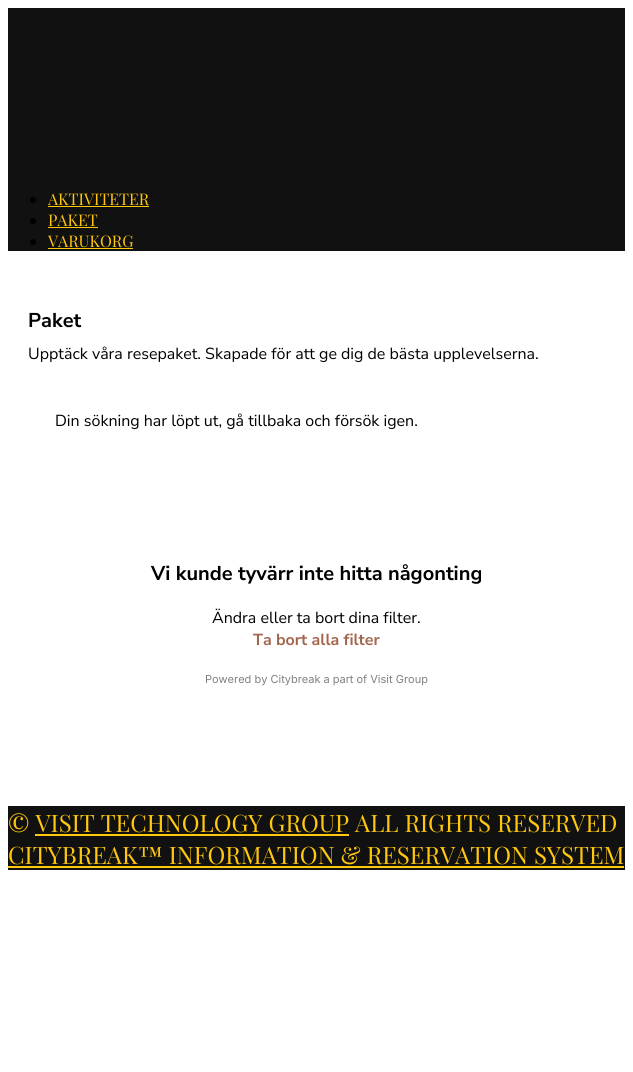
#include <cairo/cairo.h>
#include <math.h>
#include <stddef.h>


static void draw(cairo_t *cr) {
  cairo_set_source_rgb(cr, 1, 1, 1);
  cairo_paint(cr);
  cairo_set_source_rgb(cr, 17 / 255.0, 17 / 255.0, 17 / 255.0);
  cairo_rectangle(cr, 8, 8, 617, 243);
  cairo_fill(cr);
  cairo_set_source_rgb(cr, 0, 0, 0);
  cairo_arc(cr, 33, 200, 3, 0, 2 * M_PI);
  cairo_fill(cr);
  cairo_set_source_rgb(cr, 1, 199 / 255.0, 14 / 255.0);
  cairo_rectangle(cr, 48, 206, 101, 1);
  cairo_fill(cr);
  cairo_set_source_rgb(cr, 0, 0, 0);
  cairo_arc(cr, 33, 221, 3, 0, 2 * M_PI);
  cairo_fill(cr);
  cairo_set_source_rgb(cr, 1, 199 / 255.0, 14 / 255.0);
  cairo_rectangle(cr, 48, 227, 50, 1);
  cairo_fill(cr);
  cairo_set_source_rgb(cr, 0, 0, 0);
  cairo_arc(cr, 33, 242, 3, 0, 2 * M_PI);
  cairo_fill(cr);
  cairo_set_source_rgb(cr, 1, 199 / 255.0, 14 / 255.0);
  cairo_rectangle(cr, 48, 248, 85, 1);
  cairo_fill(cr);
  cairo_set_source_rgb(cr, 17 / 255.0, 17 / 255.0, 17 / 255.0);
  cairo_rectangle(cr, 8, 806, 617, 64);
  cairo_fill(cr);
  cairo_set_source_rgb(cr, 1, 199 / 255.0, 14 / 255.0);
  cairo_rectangle(cr, 35, 834, 314, 2);
  cairo_fill(cr);
  cairo_rectangle(cr, 8, 866, 616, 2);
  cairo_fill(cr);
  cairo_select_font_face(cr, "Playfair Display", CAIRO_FONT_SLANT_NORMAL, CAIRO_FONT_WEIGHT_NORMAL);
  cairo_set_font_size(cr, 16);
  cairo_move_to(cr, 48, 205);
  cairo_show_text(cr, "AKTIVITETER");
  cairo_move_to(cr, 48, 226);
  cairo_show_text(cr, "PAKET");
  cairo_move_to(cr, 48, 247);
  cairo_show_text(cr, "VARUKORG");
  cairo_select_font_face(cr, "Nunito Sans", CAIRO_FONT_SLANT_NORMAL, CAIRO_FONT_WEIGHT_BOLD);
  cairo_set_font_size(cr, 20);
  cairo_set_source_rgb(cr, 0, 0, 0);
  cairo_move_to(cr, 28, 327);
  cairo_show_text(cr, "Paket");
  cairo_select_font_face(cr, "Nunito Sans", CAIRO_FONT_SLANT_NORMAL, CAIRO_FONT_WEIGHT_NORMAL);
  cairo_set_font_size(cr, 16);
  cairo_move_to(cr, 28, 359);
  cairo_show_text(cr, "Upptäck våra resepaket. Skapade för att ge dig de bästa upplevelserna.");
  cairo_move_to(cr, 55, 426);
  cairo_show_text(cr, "Din sökning har löpt ut, gå tillbaka och försök igen.");
  cairo_select_font_face(cr, "Nunito Sans", CAIRO_FONT_SLANT_NORMAL, CAIRO_FONT_WEIGHT_BOLD);
  cairo_set_font_size(cr, 20);
  cairo_move_to(cr, 151, 580);
  cairo_show_text(cr, "Vi kunde tyvärr inte hitta någonting");
  cairo_select_font_face(cr, "Nunito Sans", CAIRO_FONT_SLANT_NORMAL, CAIRO_FONT_WEIGHT_NORMAL);
  cairo_set_font_size(cr, 16);
  cairo_move_to(cr, 212, 623);
  cairo_show_text(cr, "Ändra eller ta bort dina filter.");
  cairo_select_font_face(cr, "Nunito Sans", CAIRO_FONT_SLANT_NORMAL, CAIRO_FONT_WEIGHT_BOLD);
  cairo_set_source_rgb(cr, 162 / 255.0, 102 / 255.0, 77 / 255.0);
  cairo_move_to(cr, 253, 645);
  cairo_show_text(cr, "Ta bort alla filter");
  cairo_select_font_face(cr, "Inter", CAIRO_FONT_SLANT_NORMAL, CAIRO_FONT_WEIGHT_NORMAL);
  cairo_set_font_size(cr, 11);
  cairo_set_source_rgb(cr, 128 / 255.0, 128 / 255.0, 128 / 255.0);
  cairo_move_to(cr, 205, 683);
  cairo_show_text(cr, "Powered by Citybreak a part of Visit Group");
  cairo_select_font_face(cr, "Playfair Display", CAIRO_FONT_SLANT_NORMAL, CAIRO_FONT_WEIGHT_NORMAL);
  cairo_set_font_size(cr, 24);
  cairo_set_source_rgb(cr, 1, 199 / 255.0, 14 / 255.0);
  cairo_move_to(cr, 8, 832);
  cairo_show_text(cr, "© VISIT TECHNOLOGY GROUP ALL RIGHTS RESERVED");
  cairo_move_to(cr, 8, 864);
  cairo_show_text(cr, "CITYBREAK™ INFORMATION & RESERVATION SYSTEM");
}

int main(void) {
  cairo_surface_t *surface = cairo_image_surface_create(CAIRO_FORMAT_RGB24, 633, 1072);
  cairo_t *cr = cairo_create(surface);
  cairo_font_options_t *options = cairo_font_options_create();
  cairo_font_options_set_hint_metrics(options, CAIRO_HINT_METRICS_OFF);
  cairo_font_options_set_hint_style(options, CAIRO_HINT_STYLE_NONE);
  cairo_set_font_options(cr, options);
  cairo_set_miter_limit(cr, 4);
  draw(cr);
  cairo_surface_write_to_png(surface, "out.png");
  cairo_font_options_destroy(options);
  cairo_destroy(cr);
  cairo_surface_destroy(surface);
  return 0;
}
